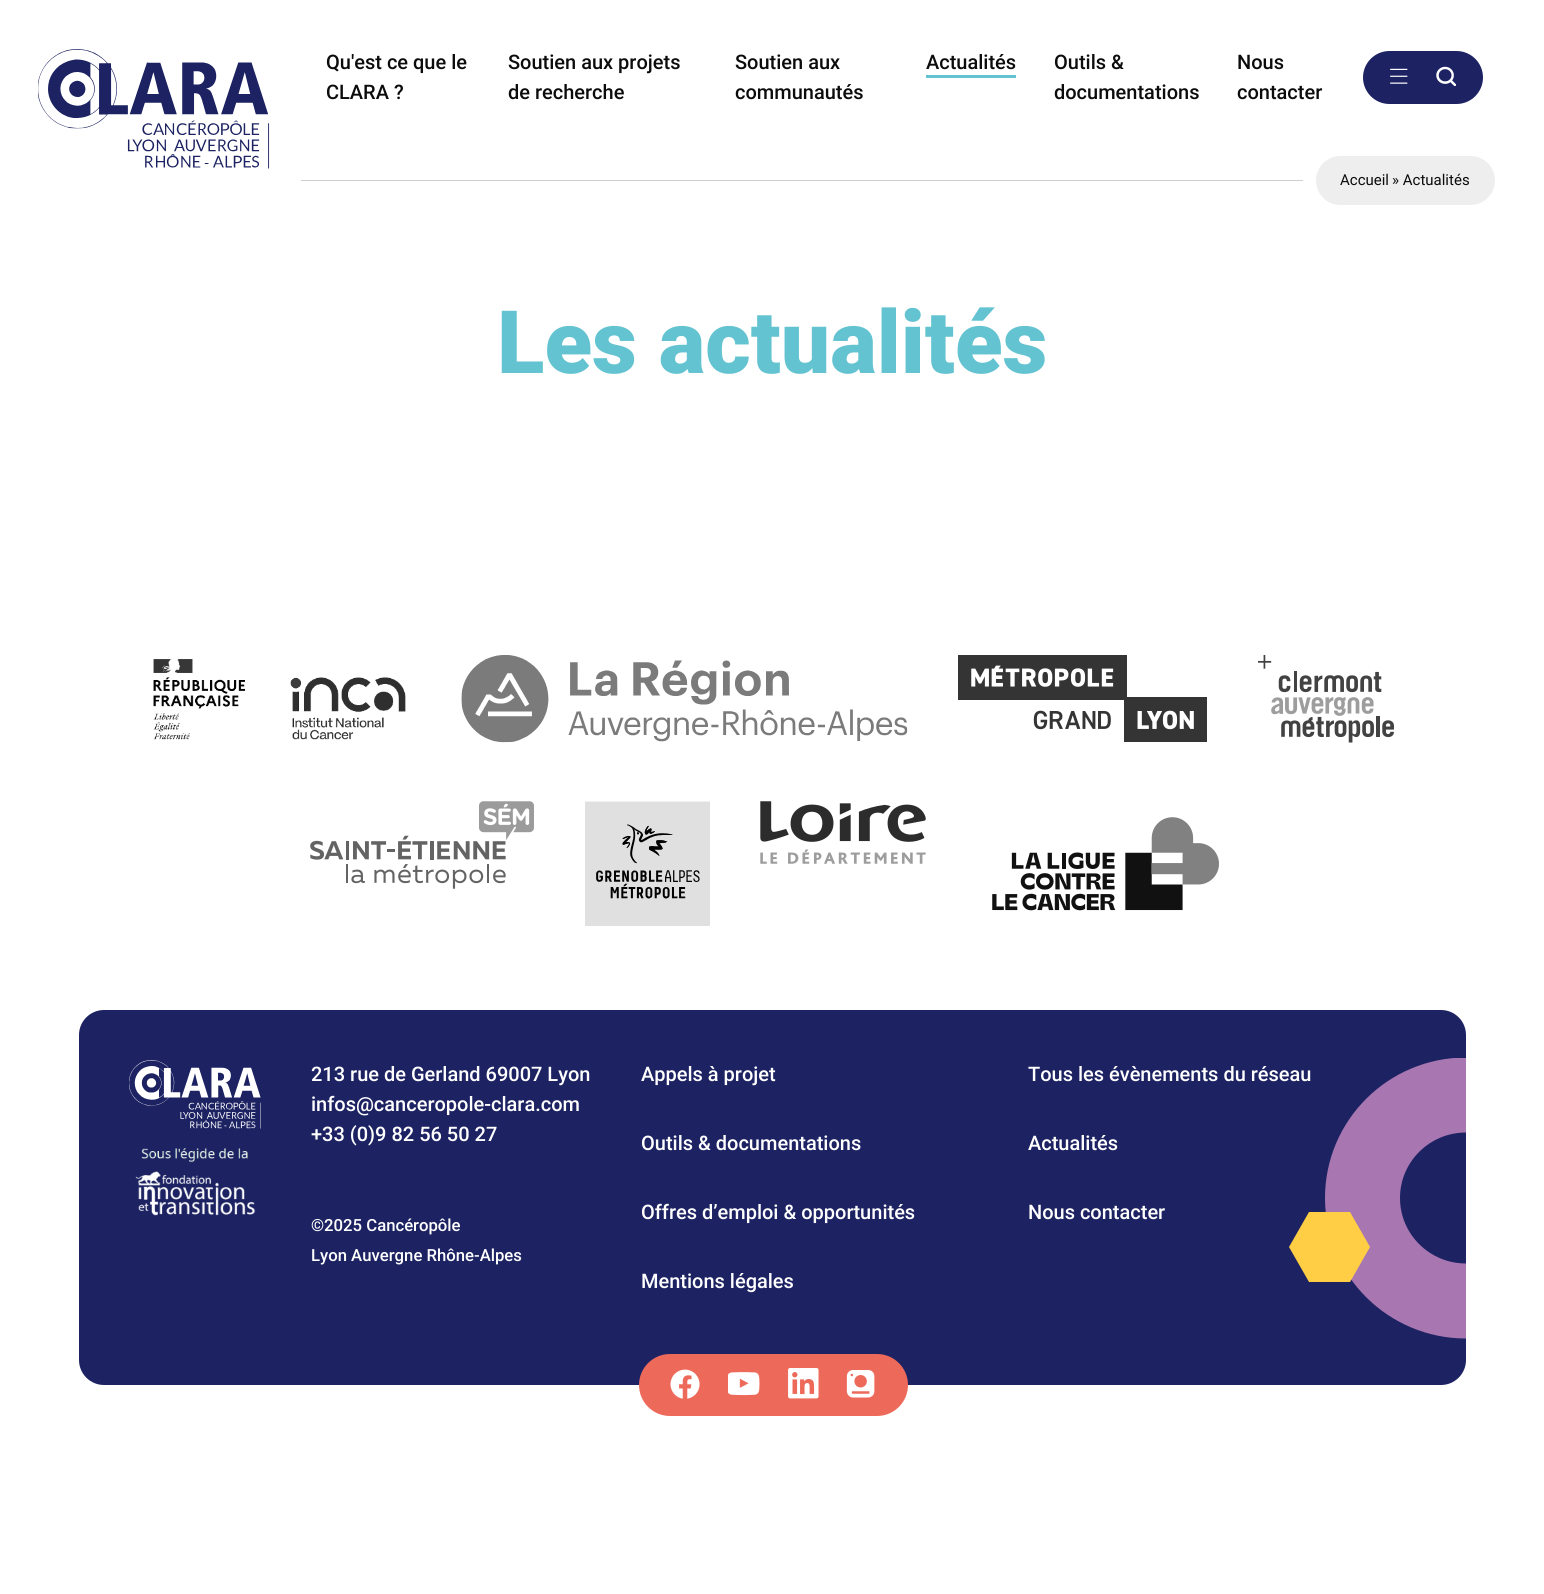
#include <cairo/cairo.h>
#include <math.h>
#include <stddef.h>


static void rounded_rect(cairo_t *cr, double x, double y, double w, double h, double r) {
  cairo_new_sub_path(cr);
  cairo_arc(cr, x + w - r, y + h - r, r, 0, M_PI / 2);
  cairo_arc(cr, x + r, y + h - r, r, M_PI / 2, M_PI);
  cairo_arc(cr, x + r, y + r, r, M_PI, 1.5 * M_PI);
  cairo_arc(cr, x + w - r, y + r, r, 1.5 * M_PI, 2 * M_PI);
  cairo_close_path(cr);
}

static void draw_image(cairo_t *cr, const char *path, double x, double y, double w, double h) {
  cairo_surface_t *image = cairo_image_surface_create_from_png(path);
  cairo_save(cr);
  cairo_set_source_surface(cr, image, x, y);
  cairo_rectangle(cr, x, y, w, h);
  cairo_fill(cr);
  cairo_restore(cr);
  cairo_surface_destroy(image);
}

static void draw(cairo_t *cr) {
  cairo_set_source_rgb(cr, 1, 1, 1);
  cairo_paint(cr);
  draw_image(cr, "images/1.png", 38, 49, 232, 120);
  cairo_set_source_rgb(cr, 99 / 255.0, 195 / 255.0, 209 / 255.0);
  cairo_rectangle(cr, 926, 75, 90, 3);
  cairo_fill(cr);
  cairo_set_source_rgb(cr, 29 / 255.0, 35 / 255.0, 98 / 255.0);
  rounded_rect(cr, 1363, 51, 120, 53, 26.5);
  cairo_fill(cr);
  draw_image(cr, "images/2.png", 1390, 68, 18, 16);
  draw_image(cr, "images/3.png", 1436, 66, 20, 20);
  cairo_set_source_rgb(cr, 207 / 255.0, 207 / 255.0, 207 / 255.0);
  cairo_rectangle(cr, 301, 180, 1003, 1);
  cairo_fill(cr);
  cairo_set_source_rgb(cr, 238 / 255.0, 238 / 255.0, 238 / 255.0);
  rounded_rect(cr, 1309.5, 149.5, 192, 62, 31);
  cairo_fill_preserve(cr);
  cairo_set_source_rgb(cr, 1, 1, 1);
  cairo_set_line_width(cr, 13);
  cairo_stroke(cr);
  draw_image(cr, "images/4.png", 153, 659, 253, 81);
  draw_image(cr, "images/5.png", 461, 655, 447, 88);
  draw_image(cr, "images/6.png", 958, 655, 249, 87);
  draw_image(cr, "images/7.png", 1258, 655, 136, 88);
  draw_image(cr, "images/8.png", 310, 801, 224, 88);
  draw_image(cr, "images/9.png", 585, 801, 125, 125);
  draw_image(cr, "images/10.png", 760, 801, 166, 63);
  draw_image(cr, "images/11.png", 992, 817, 227, 94);
  cairo_set_source_rgb(cr, 29 / 255.0, 35 / 255.0, 98 / 255.0);
  rounded_rect(cr, 79, 1010, 1387, 375, 25);
  cairo_fill(cr);
  cairo_save(cr);
  cairo_rectangle(cr, 1274, 1058, 192, 281);
  cairo_clip(cr);
  cairo_new_path(cr);
  cairo_move_to(cr, 1466, 1095);
  cairo_curve_to(cr, 1409, 1095, 1362.5, 1141, 1362.5, 1198);
  cairo_curve_to(cr, 1362.5, 1255, 1409, 1301, 1466, 1301);
  cairo_set_source_rgb(cr, 168 / 255.0, 119 / 255.0, 178 / 255.0);
  cairo_set_line_width(cr, 75);
  cairo_stroke(cr);
  cairo_restore(cr);
  cairo_set_source_rgb(cr, 1, 206 / 255.0, 68 / 255.0);
  cairo_new_path(cr);
  cairo_move_to(cr, 1309, 1212);
  cairo_line_to(cr, 1350, 1212);
  cairo_line_to(cr, 1370, 1247);
  cairo_line_to(cr, 1350, 1282);
  cairo_line_to(cr, 1309, 1282);
  cairo_line_to(cr, 1289, 1247);
  cairo_close_path(cr);
  cairo_fill(cr);
  draw_image(cr, "images/12.png", 129, 1060, 132, 69);
  draw_image(cr, "images/13.png", 135, 1148, 121, 68);
  cairo_set_source_rgb(cr, 237 / 255.0, 106 / 255.0, 91 / 255.0);
  rounded_rect(cr, 639, 1354, 269, 62, 31);
  cairo_fill(cr);
  draw_image(cr, "images/14.png", 670, 1369, 30, 30);
  draw_image(cr, "images/15.png", 728, 1372, 32, 24);
  draw_image(cr, "images/16.png", 788, 1368, 31, 31);
  draw_image(cr, "images/17.png", 846, 1370, 29, 28);
  cairo_select_font_face(cr, "Roboto Medium", CAIRO_FONT_SLANT_NORMAL, CAIRO_FONT_WEIGHT_NORMAL);
  cairo_set_font_size(cr, 20);
  cairo_set_source_rgb(cr, 12 / 255.0, 12 / 255.0, 12 / 255.0);
  cairo_move_to(cr, 326, 69);
  cairo_show_text(cr, "Qu'est ce que le");
  cairo_move_to(cr, 326, 99);
  cairo_show_text(cr, "CLARA ?");
  cairo_move_to(cr, 508, 69);
  cairo_show_text(cr, "Soutien aux projets");
  cairo_move_to(cr, 508, 99);
  cairo_show_text(cr, "de recherche");
  cairo_move_to(cr, 735, 69);
  cairo_show_text(cr, "Soutien aux");
  cairo_move_to(cr, 735, 99);
  cairo_show_text(cr, "communautés");
  cairo_move_to(cr, 926, 69);
  cairo_show_text(cr, "Actualités");
  cairo_move_to(cr, 1054, 69);
  cairo_show_text(cr, "Outils &");
  cairo_move_to(cr, 1054, 99);
  cairo_show_text(cr, "documentations");
  cairo_move_to(cr, 1237, 69);
  cairo_show_text(cr, "Nous");
  cairo_move_to(cr, 1237, 99);
  cairo_show_text(cr, "contacter");
  cairo_select_font_face(cr, "Roboto", CAIRO_FONT_SLANT_NORMAL, CAIRO_FONT_WEIGHT_NORMAL);
  cairo_set_font_size(cr, 15);
  cairo_move_to(cr, 1340, 185);
  cairo_show_text(cr, "Accueil");
  cairo_move_to(cr, 1392, 185);
  cairo_show_text(cr, "» Actualités");
  cairo_select_font_face(cr, "Roboto Black", CAIRO_FONT_SLANT_NORMAL, CAIRO_FONT_WEIGHT_NORMAL);
  cairo_set_font_size(cr, 87.5);
  cairo_set_source_rgb(cr, 99 / 255.0, 195 / 255.0, 209 / 255.0);
  cairo_move_to(cr, 497, 373);
  cairo_show_text(cr, "Les actualités");
  cairo_select_font_face(cr, "Roboto Medium", CAIRO_FONT_SLANT_NORMAL, CAIRO_FONT_WEIGHT_NORMAL);
  cairo_set_font_size(cr, 20);
  cairo_set_source_rgb(cr, 1, 1, 1);
  cairo_move_to(cr, 311, 1081);
  cairo_show_text(cr, "213 rue de Gerland 69007 Lyon");
  cairo_move_to(cr, 311, 1111);
  cairo_show_text(cr, "infos@canceropole-clara.com");
  cairo_move_to(cr, 311, 1141);
  cairo_show_text(cr, "+33 (0)9 82 56 50 27");
  cairo_set_font_size(cr, 16.7);
  cairo_move_to(cr, 311, 1231);
  cairo_show_text(cr, "©2025 Cancéropôle");
  cairo_move_to(cr, 311, 1261);
  cairo_show_text(cr, "Lyon Auvergne Rhône-Alpes");
  cairo_set_font_size(cr, 20);
  cairo_move_to(cr, 641, 1081);
  cairo_show_text(cr, "Appels à projet");
  cairo_move_to(cr, 1028, 1081);
  cairo_show_text(cr, "Tous les évènements du réseau");
  cairo_move_to(cr, 641, 1150);
  cairo_show_text(cr, "Outils & documentations");
  cairo_move_to(cr, 1028, 1150);
  cairo_show_text(cr, "Actualités");
  cairo_move_to(cr, 641, 1219);
  cairo_show_text(cr, "Offres d’emploi & opportunités");
  cairo_move_to(cr, 1028, 1219);
  cairo_show_text(cr, "Nous contacter");
  cairo_move_to(cr, 641, 1288);
  cairo_show_text(cr, "Mentions légales");
}

int main(void) {
  cairo_surface_t *surface = cairo_image_surface_create(CAIRO_FORMAT_RGB24, 1544, 1594);
  cairo_t *cr = cairo_create(surface);
  cairo_font_options_t *options = cairo_font_options_create();
  cairo_font_options_set_hint_metrics(options, CAIRO_HINT_METRICS_OFF);
  cairo_font_options_set_hint_style(options, CAIRO_HINT_STYLE_NONE);
  cairo_set_font_options(cr, options);
  cairo_set_miter_limit(cr, 4);
  draw(cr);
  cairo_surface_write_to_png(surface, "out.png");
  cairo_font_options_destroy(options);
  cairo_destroy(cr);
  cairo_surface_destroy(surface);
  return 0;
}
